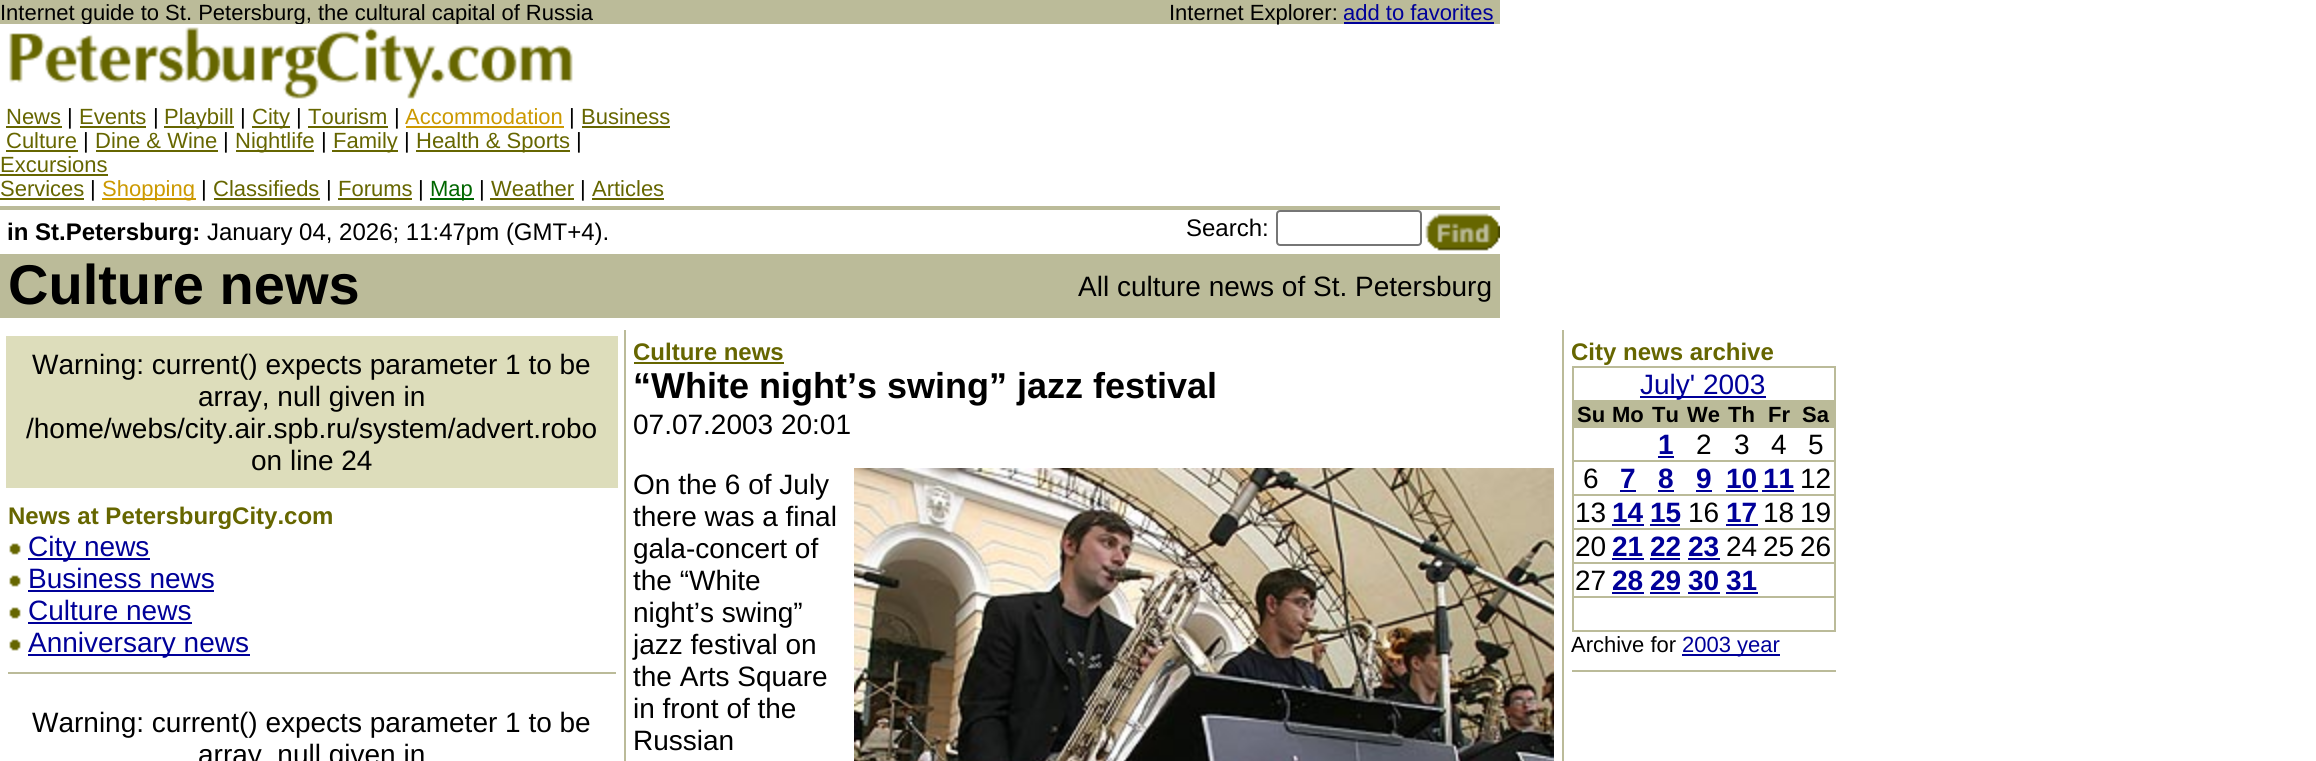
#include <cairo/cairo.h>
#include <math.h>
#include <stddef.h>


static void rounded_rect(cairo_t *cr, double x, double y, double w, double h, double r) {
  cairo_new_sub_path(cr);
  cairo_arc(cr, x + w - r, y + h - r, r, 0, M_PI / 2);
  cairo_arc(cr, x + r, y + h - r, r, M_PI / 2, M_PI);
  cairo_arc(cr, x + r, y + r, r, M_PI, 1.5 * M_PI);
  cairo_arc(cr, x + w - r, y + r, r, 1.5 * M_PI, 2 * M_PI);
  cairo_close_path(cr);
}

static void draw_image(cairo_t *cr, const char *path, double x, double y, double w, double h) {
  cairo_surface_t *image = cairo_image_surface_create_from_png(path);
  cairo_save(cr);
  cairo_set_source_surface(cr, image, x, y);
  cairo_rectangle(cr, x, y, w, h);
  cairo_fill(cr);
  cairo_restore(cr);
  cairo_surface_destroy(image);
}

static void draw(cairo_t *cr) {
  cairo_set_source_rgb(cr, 1, 1, 1);
  cairo_paint(cr);
  cairo_set_source_rgb(cr, 187 / 255.0, 187 / 255.0, 153 / 255.0);
  cairo_rectangle(cr, 0, 0, 1500, 24);
  cairo_fill(cr);
  cairo_set_source_rgb(cr, 0, 0, 153 / 255.0);
  cairo_rectangle(cr, 1344, 22, 150, 2);
  cairo_fill(cr);
  cairo_set_source_rgb(cr, 102 / 255.0, 102 / 255.0, 0);
  cairo_rectangle(cr, 6, 126, 56, 2);
  cairo_fill(cr);
  cairo_rectangle(cr, 80, 126, 66, 2);
  cairo_fill(cr);
  cairo_rectangle(cr, 164, 126, 70, 2);
  cairo_fill(cr);
  cairo_rectangle(cr, 252, 126, 38, 2);
  cairo_fill(cr);
  cairo_rectangle(cr, 308, 126, 80, 2);
  cairo_fill(cr);
  cairo_set_source_rgb(cr, 204 / 255.0, 153 / 255.0, 0);
  cairo_rectangle(cr, 406, 126, 158, 2);
  cairo_fill(cr);
  cairo_set_source_rgb(cr, 102 / 255.0, 102 / 255.0, 0);
  cairo_rectangle(cr, 582, 126, 88, 2);
  cairo_fill(cr);
  cairo_rectangle(cr, 6, 150, 72, 2);
  cairo_fill(cr);
  cairo_rectangle(cr, 96, 150, 122, 2);
  cairo_fill(cr);
  cairo_rectangle(cr, 236, 150, 78, 2);
  cairo_fill(cr);
  cairo_rectangle(cr, 332, 150, 66, 2);
  cairo_fill(cr);
  cairo_rectangle(cr, 416, 150, 154, 2);
  cairo_fill(cr);
  cairo_rectangle(cr, 0, 174, 108, 2);
  cairo_fill(cr);
  cairo_rectangle(cr, 0, 198, 84, 2);
  cairo_fill(cr);
  cairo_set_source_rgb(cr, 204 / 255.0, 153 / 255.0, 0);
  cairo_rectangle(cr, 102, 198, 94, 2);
  cairo_fill(cr);
  cairo_set_source_rgb(cr, 102 / 255.0, 102 / 255.0, 0);
  cairo_rectangle(cr, 214, 198, 106, 2);
  cairo_fill(cr);
  cairo_rectangle(cr, 338, 198, 74, 2);
  cairo_fill(cr);
  cairo_set_source_rgb(cr, 0, 102 / 255.0, 0);
  cairo_rectangle(cr, 430, 198, 44, 2);
  cairo_fill(cr);
  cairo_set_source_rgb(cr, 102 / 255.0, 102 / 255.0, 0);
  cairo_rectangle(cr, 490, 198, 84, 2);
  cairo_fill(cr);
  cairo_rectangle(cr, 592, 198, 72, 2);
  cairo_fill(cr);
  cairo_set_source_rgb(cr, 187 / 255.0, 187 / 255.0, 153 / 255.0);
  cairo_rectangle(cr, 0, 206, 1500, 4);
  cairo_fill(cr);
  rounded_rect(cr, 1277, 211, 144, 34, 3);
  cairo_set_source_rgb(cr, 118 / 255.0, 118 / 255.0, 118 / 255.0);
  cairo_stroke(cr);
  draw_image(cr, "images/2.png", 1425, 213, 75, 38);
  cairo_set_source_rgb(cr, 187 / 255.0, 187 / 255.0, 153 / 255.0);
  cairo_rectangle(cr, 0, 254, 1500, 64);
  cairo_fill(cr);
  cairo_set_source_rgb(cr, 221 / 255.0, 221 / 255.0, 187 / 255.0);
  cairo_rectangle(cr, 6, 336, 612, 152);
  cairo_fill(cr);
  draw_image(cr, "images/3.png", 9, 543, 12, 12);
  cairo_set_source_rgb(cr, 0, 0, 153 / 255.0);
  cairo_rectangle(cr, 28, 558, 122, 2);
  cairo_fill(cr);
  draw_image(cr, "images/3.png", 9, 575, 12, 12);
  cairo_rectangle(cr, 28, 590, 186, 2);
  cairo_fill(cr);
  draw_image(cr, "images/3.png", 9, 607, 12, 12);
  cairo_rectangle(cr, 28, 622, 164, 2);
  cairo_fill(cr);
  draw_image(cr, "images/3.png", 9, 639, 12, 12);
  cairo_rectangle(cr, 28, 654, 222, 2);
  cairo_fill(cr);
  cairo_set_source_rgb(cr, 187 / 255.0, 187 / 255.0, 153 / 255.0);
  cairo_rectangle(cr, 8, 672, 608, 2);
  cairo_fill(cr);
  cairo_rectangle(cr, 624, 330, 2, 431);
  cairo_fill(cr);
  cairo_set_source_rgb(cr, 102 / 255.0, 102 / 255.0, 0);
  cairo_rectangle(cr, 634, 362, 150, 2);
  cairo_fill(cr);
  draw_image(cr, "images/4.png", 854, 468, 700, 293);
  cairo_set_source_rgb(cr, 187 / 255.0, 187 / 255.0, 153 / 255.0);
  cairo_rectangle(cr, 1562, 330, 2, 431);
  cairo_fill(cr);
  cairo_rectangle(cr, 1572, 366, 264, 266);
  cairo_fill(cr);
  cairo_set_source_rgb(cr, 1, 1, 1);
  cairo_rectangle(cr, 1574, 368, 260, 32);
  cairo_fill(cr);
  cairo_set_source_rgb(cr, 0, 0, 153 / 255.0);
  cairo_rectangle(cr, 1640, 396, 126, 2);
  cairo_fill(cr);
  cairo_set_source_rgb(cr, 1, 1, 1);
  cairo_rectangle(cr, 1574, 428, 260, 32);
  cairo_fill(cr);
  cairo_set_source_rgb(cr, 0, 0, 153 / 255.0);
  cairo_rectangle(cr, 1658, 456, 16, 2);
  cairo_fill(cr);
  cairo_set_source_rgb(cr, 1, 1, 1);
  cairo_rectangle(cr, 1574, 462, 260, 32);
  cairo_fill(cr);
  cairo_set_source_rgb(cr, 0, 0, 153 / 255.0);
  cairo_rectangle(cr, 1620, 490, 16, 2);
  cairo_fill(cr);
  cairo_rectangle(cr, 1658, 490, 16, 2);
  cairo_fill(cr);
  cairo_rectangle(cr, 1696, 490, 16, 2);
  cairo_fill(cr);
  cairo_rectangle(cr, 1726, 490, 32, 2);
  cairo_fill(cr);
  cairo_rectangle(cr, 1762, 490, 32, 2);
  cairo_fill(cr);
  cairo_set_source_rgb(cr, 1, 1, 1);
  cairo_rectangle(cr, 1574, 496, 260, 32);
  cairo_fill(cr);
  cairo_set_source_rgb(cr, 0, 0, 153 / 255.0);
  cairo_rectangle(cr, 1612, 524, 32, 2);
  cairo_fill(cr);
  cairo_rectangle(cr, 1650, 524, 30, 2);
  cairo_fill(cr);
  cairo_rectangle(cr, 1726, 524, 32, 2);
  cairo_fill(cr);
  cairo_set_source_rgb(cr, 1, 1, 1);
  cairo_rectangle(cr, 1574, 530, 260, 32);
  cairo_fill(cr);
  cairo_set_source_rgb(cr, 0, 0, 153 / 255.0);
  cairo_rectangle(cr, 1612, 558, 32, 2);
  cairo_fill(cr);
  cairo_rectangle(cr, 1650, 558, 30, 2);
  cairo_fill(cr);
  cairo_rectangle(cr, 1688, 558, 32, 2);
  cairo_fill(cr);
  cairo_set_source_rgb(cr, 1, 1, 1);
  cairo_rectangle(cr, 1574, 564, 260, 32);
  cairo_fill(cr);
  cairo_set_source_rgb(cr, 0, 0, 153 / 255.0);
  cairo_rectangle(cr, 1612, 592, 32, 2);
  cairo_fill(cr);
  cairo_rectangle(cr, 1650, 592, 30, 2);
  cairo_fill(cr);
  cairo_rectangle(cr, 1688, 592, 32, 2);
  cairo_fill(cr);
  cairo_rectangle(cr, 1726, 592, 32, 2);
  cairo_fill(cr);
  cairo_set_source_rgb(cr, 1, 1, 1);
  cairo_rectangle(cr, 1574, 598, 260, 32);
  cairo_fill(cr);
  cairo_set_source_rgb(cr, 0, 0, 153 / 255.0);
  cairo_rectangle(cr, 1682, 654, 98, 2);
  cairo_fill(cr);
  cairo_set_source_rgb(cr, 187 / 255.0, 187 / 255.0, 153 / 255.0);
  cairo_rectangle(cr, 1572, 670, 264, 2);
  cairo_fill(cr);
  cairo_select_font_face(cr, "Liberation Sans", CAIRO_FONT_SLANT_NORMAL, CAIRO_FONT_WEIGHT_NORMAL);
  cairo_set_font_size(cr, 22);
  cairo_set_source_rgb(cr, 0, 0, 0);
  cairo_move_to(cr, 0, 20);
  cairo_show_text(cr, "Internet guide to St. Petersburg, the cultural capital of Russia");
  cairo_move_to(cr, 1169, 20);
  cairo_show_text(cr, "Internet Explorer:");
  cairo_set_source_rgb(cr, 0, 0, 153 / 255.0);
  cairo_move_to(cr, 1343, 20);
  cairo_show_text(cr, "add to favorites");
  draw_image(cr, "images/1.png", 9, 24, 564, 75);
  cairo_set_source_rgb(cr, 102 / 255.0, 102 / 255.0, 0);
  cairo_move_to(cr, 6, 124);
  cairo_show_text(cr, "News");
  cairo_set_source_rgb(cr, 0, 0, 0);
  cairo_move_to(cr, 67, 124);
  cairo_show_text(cr, "|");
  cairo_set_source_rgb(cr, 102 / 255.0, 102 / 255.0, 0);
  cairo_move_to(cr, 79, 124);
  cairo_show_text(cr, "Events");
  cairo_set_source_rgb(cr, 0, 0, 0);
  cairo_move_to(cr, 153, 124);
  cairo_show_text(cr, "|");
  cairo_set_source_rgb(cr, 102 / 255.0, 102 / 255.0, 0);
  cairo_move_to(cr, 164, 124);
  cairo_show_text(cr, "Playbill");
  cairo_set_source_rgb(cr, 0, 0, 0);
  cairo_move_to(cr, 240, 124);
  cairo_show_text(cr, "|");
  cairo_set_source_rgb(cr, 102 / 255.0, 102 / 255.0, 0);
  cairo_move_to(cr, 252, 124);
  cairo_show_text(cr, "City");
  cairo_set_source_rgb(cr, 0, 0, 0);
  cairo_move_to(cr, 296, 124);
  cairo_show_text(cr, "|");
  cairo_set_source_rgb(cr, 102 / 255.0, 102 / 255.0, 0);
  cairo_move_to(cr, 308, 124);
  cairo_show_text(cr, "Tourism");
  cairo_set_source_rgb(cr, 0, 0, 0);
  cairo_move_to(cr, 394, 124);
  cairo_show_text(cr, "|");
  cairo_set_source_rgb(cr, 204 / 255.0, 153 / 255.0, 0);
  cairo_move_to(cr, 405, 124);
  cairo_show_text(cr, "Accommodation");
  cairo_set_source_rgb(cr, 0, 0, 0);
  cairo_move_to(cr, 569, 124);
  cairo_show_text(cr, "|");
  cairo_set_source_rgb(cr, 102 / 255.0, 102 / 255.0, 0);
  cairo_move_to(cr, 581, 124);
  cairo_show_text(cr, "Business");
  cairo_move_to(cr, 6, 148);
  cairo_show_text(cr, "Culture");
  cairo_set_source_rgb(cr, 0, 0, 0);
  cairo_move_to(cr, 83, 148);
  cairo_show_text(cr, "|");
  cairo_set_source_rgb(cr, 102 / 255.0, 102 / 255.0, 0);
  cairo_move_to(cr, 95, 148);
  cairo_show_text(cr, "Dine & Wine");
  cairo_set_source_rgb(cr, 0, 0, 0);
  cairo_move_to(cr, 223, 148);
  cairo_show_text(cr, "|");
  cairo_set_source_rgb(cr, 102 / 255.0, 102 / 255.0, 0);
  cairo_move_to(cr, 235, 148);
  cairo_show_text(cr, "Nightlife");
  cairo_set_source_rgb(cr, 0, 0, 0);
  cairo_move_to(cr, 321, 148);
  cairo_show_text(cr, "|");
  cairo_set_source_rgb(cr, 102 / 255.0, 102 / 255.0, 0);
  cairo_move_to(cr, 333, 148);
  cairo_show_text(cr, "Family");
  cairo_set_source_rgb(cr, 0, 0, 0);
  cairo_move_to(cr, 404, 148);
  cairo_show_text(cr, "|");
  cairo_set_source_rgb(cr, 102 / 255.0, 102 / 255.0, 0);
  cairo_move_to(cr, 416, 148);
  cairo_show_text(cr, "Health & Sports");
  cairo_set_source_rgb(cr, 0, 0, 0);
  cairo_move_to(cr, 576, 148);
  cairo_show_text(cr, "|");
  cairo_set_source_rgb(cr, 102 / 255.0, 102 / 255.0, 0);
  cairo_move_to(cr, 0, 172);
  cairo_show_text(cr, "Excursions");
  cairo_move_to(cr, 0, 196);
  cairo_show_text(cr, "Services");
  cairo_set_source_rgb(cr, 0, 0, 0);
  cairo_move_to(cr, 90, 196);
  cairo_show_text(cr, "|");
  cairo_set_source_rgb(cr, 204 / 255.0, 153 / 255.0, 0);
  cairo_move_to(cr, 102, 196);
  cairo_show_text(cr, "Shopping");
  cairo_set_source_rgb(cr, 0, 0, 0);
  cairo_move_to(cr, 201, 196);
  cairo_show_text(cr, "|");
  cairo_set_source_rgb(cr, 102 / 255.0, 102 / 255.0, 0);
  cairo_move_to(cr, 213, 196);
  cairo_show_text(cr, "Classifieds");
  cairo_set_source_rgb(cr, 0, 0, 0);
  cairo_move_to(cr, 326, 196);
  cairo_show_text(cr, "|");
  cairo_set_source_rgb(cr, 102 / 255.0, 102 / 255.0, 0);
  cairo_move_to(cr, 338, 196);
  cairo_show_text(cr, "Forums");
  cairo_set_source_rgb(cr, 0, 0, 0);
  cairo_move_to(cr, 418, 196);
  cairo_show_text(cr, "|");
  cairo_set_source_rgb(cr, 0, 102 / 255.0, 0);
  cairo_move_to(cr, 430, 196);
  cairo_show_text(cr, "Map");
  cairo_set_source_rgb(cr, 0, 0, 0);
  cairo_move_to(cr, 479, 196);
  cairo_show_text(cr, "|");
  cairo_set_source_rgb(cr, 102 / 255.0, 102 / 255.0, 0);
  cairo_move_to(cr, 491, 196);
  cairo_show_text(cr, "Weather");
  cairo_set_source_rgb(cr, 0, 0, 0);
  cairo_move_to(cr, 580, 196);
  cairo_show_text(cr, "|");
  cairo_set_source_rgb(cr, 102 / 255.0, 102 / 255.0, 0);
  cairo_move_to(cr, 592, 196);
  cairo_show_text(cr, "Articles");
  cairo_select_font_face(cr, "Liberation Sans", CAIRO_FONT_SLANT_NORMAL, CAIRO_FONT_WEIGHT_BOLD);
  cairo_set_font_size(cr, 24);
  cairo_set_source_rgb(cr, 0, 0, 0);
  cairo_move_to(cr, 7, 240);
  cairo_show_text(cr, "in St.Petersburg:");
  cairo_select_font_face(cr, "Liberation Sans", CAIRO_FONT_SLANT_NORMAL, CAIRO_FONT_WEIGHT_NORMAL);
  cairo_move_to(cr, 207, 240);
  cairo_show_text(cr, "January 04, 2026; 11:47pm (GMT+4).");
  cairo_move_to(cr, 1186, 236);
  cairo_show_text(cr, "Search:");
  cairo_select_font_face(cr, "Liberation Sans", CAIRO_FONT_SLANT_NORMAL, CAIRO_FONT_WEIGHT_BOLD);
  cairo_set_font_size(cr, 56);
  cairo_move_to(cr, 8, 304);
  cairo_show_text(cr, "Culture news");
  cairo_select_font_face(cr, "Liberation Sans", CAIRO_FONT_SLANT_NORMAL, CAIRO_FONT_WEIGHT_NORMAL);
  cairo_set_font_size(cr, 28);
  cairo_move_to(cr, 1078, 296);
  cairo_show_text(cr, "All culture news of St. Petersburg");
  cairo_move_to(cr, 32, 374);
  cairo_show_text(cr, "Warning: current() expects parameter 1 to be");
  cairo_move_to(cr, 198, 406);
  cairo_show_text(cr, "array, null given in");
  cairo_move_to(cr, 26, 438);
  cairo_show_text(cr, "/home/webs/city.air.spb.ru/system/advert.robo");
  cairo_move_to(cr, 251, 470);
  cairo_show_text(cr, "on line 24");
  cairo_select_font_face(cr, "Liberation Sans", CAIRO_FONT_SLANT_NORMAL, CAIRO_FONT_WEIGHT_BOLD);
  cairo_set_font_size(cr, 24);
  cairo_set_source_rgb(cr, 102 / 255.0, 102 / 255.0, 0);
  cairo_move_to(cr, 8, 524);
  cairo_show_text(cr, "News at PetersburgCity.com");
  cairo_select_font_face(cr, "Liberation Sans", CAIRO_FONT_SLANT_NORMAL, CAIRO_FONT_WEIGHT_NORMAL);
  cairo_set_font_size(cr, 28);
  cairo_set_source_rgb(cr, 0, 0, 153 / 255.0);
  cairo_move_to(cr, 28, 556);
  cairo_show_text(cr, "City news");
  cairo_move_to(cr, 28, 588);
  cairo_show_text(cr, "Business news");
  cairo_move_to(cr, 28, 620);
  cairo_show_text(cr, "Culture news");
  cairo_move_to(cr, 28, 652);
  cairo_show_text(cr, "Anniversary news");
  cairo_set_source_rgb(cr, 0, 0, 0);
  cairo_move_to(cr, 32, 732);
  cairo_show_text(cr, "Warning: current() expects parameter 1 to be");
  cairo_move_to(cr, 198, 764);
  cairo_show_text(cr, "array, null given in");
  cairo_select_font_face(cr, "Liberation Sans", CAIRO_FONT_SLANT_NORMAL, CAIRO_FONT_WEIGHT_BOLD);
  cairo_set_font_size(cr, 24);
  cairo_set_source_rgb(cr, 102 / 255.0, 102 / 255.0, 0);
  cairo_move_to(cr, 633, 360);
  cairo_show_text(cr, "Culture news");
  cairo_set_font_size(cr, 36);
  cairo_set_source_rgb(cr, 0, 0, 0);
  cairo_move_to(cr, 633, 398);
  cairo_show_text(cr, "“White night’s swing” jazz festival");
  cairo_select_font_face(cr, "Liberation Sans", CAIRO_FONT_SLANT_NORMAL, CAIRO_FONT_WEIGHT_NORMAL);
  cairo_set_font_size(cr, 28);
  cairo_move_to(cr, 633, 434);
  cairo_show_text(cr, "07.07.2003 20:01");
  cairo_move_to(cr, 633, 494);
  cairo_show_text(cr, "On the 6 of July");
  cairo_move_to(cr, 633, 526);
  cairo_show_text(cr, "there was a final");
  cairo_move_to(cr, 633, 558);
  cairo_show_text(cr, "gala-concert of");
  cairo_move_to(cr, 633, 590);
  cairo_show_text(cr, "the “White");
  cairo_move_to(cr, 633, 622);
  cairo_show_text(cr, "night’s swing”");
  cairo_move_to(cr, 633, 654);
  cairo_show_text(cr, "jazz festival on");
  cairo_move_to(cr, 633, 686);
  cairo_show_text(cr, "the Arts Square");
  cairo_move_to(cr, 633, 718);
  cairo_show_text(cr, "in front of the");
  cairo_move_to(cr, 633, 750);
  cairo_show_text(cr, "Russian");
  cairo_select_font_face(cr, "Liberation Sans", CAIRO_FONT_SLANT_NORMAL, CAIRO_FONT_WEIGHT_BOLD);
  cairo_set_font_size(cr, 24);
  cairo_set_source_rgb(cr, 102 / 255.0, 102 / 255.0, 0);
  cairo_move_to(cr, 1571, 360);
  cairo_show_text(cr, "City news archive");
  cairo_select_font_face(cr, "Liberation Sans", CAIRO_FONT_SLANT_NORMAL, CAIRO_FONT_WEIGHT_NORMAL);
  cairo_set_font_size(cr, 28);
  cairo_set_source_rgb(cr, 0, 0, 153 / 255.0);
  cairo_move_to(cr, 1640, 394);
  cairo_show_text(cr, "July' 2003");
  cairo_select_font_face(cr, "Liberation Sans", CAIRO_FONT_SLANT_NORMAL, CAIRO_FONT_WEIGHT_BOLD);
  cairo_set_font_size(cr, 22);
  cairo_set_source_rgb(cr, 0, 0, 0);
  cairo_move_to(cr, 1577, 422);
  cairo_show_text(cr, "Su");
  cairo_move_to(cr, 1612, 422);
  cairo_show_text(cr, "Mo");
  cairo_move_to(cr, 1652, 422);
  cairo_show_text(cr, "Tu");
  cairo_move_to(cr, 1687, 422);
  cairo_show_text(cr, "We");
  cairo_move_to(cr, 1728, 422);
  cairo_show_text(cr, "Th");
  cairo_move_to(cr, 1768, 422);
  cairo_show_text(cr, "Fr");
  cairo_move_to(cr, 1802, 422);
  cairo_show_text(cr, "Sa");
  cairo_set_font_size(cr, 28);
  cairo_set_source_rgb(cr, 0, 0, 153 / 255.0);
  cairo_move_to(cr, 1658, 454);
  cairo_show_text(cr, "1");
  cairo_select_font_face(cr, "Liberation Sans", CAIRO_FONT_SLANT_NORMAL, CAIRO_FONT_WEIGHT_NORMAL);
  cairo_set_source_rgb(cr, 0, 0, 0);
  cairo_move_to(cr, 1696, 454);
  cairo_show_text(cr, "2");
  cairo_move_to(cr, 1734, 454);
  cairo_show_text(cr, "3");
  cairo_move_to(cr, 1771, 454);
  cairo_show_text(cr, "4");
  cairo_move_to(cr, 1808, 454);
  cairo_show_text(cr, "5");
  cairo_move_to(cr, 1583, 488);
  cairo_show_text(cr, "6");
  cairo_select_font_face(cr, "Liberation Sans", CAIRO_FONT_SLANT_NORMAL, CAIRO_FONT_WEIGHT_BOLD);
  cairo_set_source_rgb(cr, 0, 0, 153 / 255.0);
  cairo_move_to(cr, 1620, 488);
  cairo_show_text(cr, "7");
  cairo_move_to(cr, 1658, 488);
  cairo_show_text(cr, "8");
  cairo_move_to(cr, 1696, 488);
  cairo_show_text(cr, "9");
  cairo_move_to(cr, 1726, 488);
  cairo_show_text(cr, "10");
  cairo_move_to(cr, 1763, 488);
  cairo_show_text(cr, "11");
  cairo_select_font_face(cr, "Liberation Sans", CAIRO_FONT_SLANT_NORMAL, CAIRO_FONT_WEIGHT_NORMAL);
  cairo_set_source_rgb(cr, 0, 0, 0);
  cairo_move_to(cr, 1800, 488);
  cairo_show_text(cr, "12");
  cairo_move_to(cr, 1575, 522);
  cairo_show_text(cr, "13");
  cairo_select_font_face(cr, "Liberation Sans", CAIRO_FONT_SLANT_NORMAL, CAIRO_FONT_WEIGHT_BOLD);
  cairo_set_source_rgb(cr, 0, 0, 153 / 255.0);
  cairo_move_to(cr, 1612, 522);
  cairo_show_text(cr, "14");
  cairo_move_to(cr, 1650, 522);
  cairo_show_text(cr, "15");
  cairo_select_font_face(cr, "Liberation Sans", CAIRO_FONT_SLANT_NORMAL, CAIRO_FONT_WEIGHT_NORMAL);
  cairo_set_source_rgb(cr, 0, 0, 0);
  cairo_move_to(cr, 1688, 522);
  cairo_show_text(cr, "16");
  cairo_select_font_face(cr, "Liberation Sans", CAIRO_FONT_SLANT_NORMAL, CAIRO_FONT_WEIGHT_BOLD);
  cairo_set_source_rgb(cr, 0, 0, 153 / 255.0);
  cairo_move_to(cr, 1726, 522);
  cairo_show_text(cr, "17");
  cairo_select_font_face(cr, "Liberation Sans", CAIRO_FONT_SLANT_NORMAL, CAIRO_FONT_WEIGHT_NORMAL);
  cairo_set_source_rgb(cr, 0, 0, 0);
  cairo_move_to(cr, 1763, 522);
  cairo_show_text(cr, "18");
  cairo_move_to(cr, 1800, 522);
  cairo_show_text(cr, "19");
  cairo_move_to(cr, 1575, 556);
  cairo_show_text(cr, "20");
  cairo_select_font_face(cr, "Liberation Sans", CAIRO_FONT_SLANT_NORMAL, CAIRO_FONT_WEIGHT_BOLD);
  cairo_set_source_rgb(cr, 0, 0, 153 / 255.0);
  cairo_move_to(cr, 1612, 556);
  cairo_show_text(cr, "21");
  cairo_move_to(cr, 1650, 556);
  cairo_show_text(cr, "22");
  cairo_move_to(cr, 1688, 556);
  cairo_show_text(cr, "23");
  cairo_select_font_face(cr, "Liberation Sans", CAIRO_FONT_SLANT_NORMAL, CAIRO_FONT_WEIGHT_NORMAL);
  cairo_set_source_rgb(cr, 0, 0, 0);
  cairo_move_to(cr, 1726, 556);
  cairo_show_text(cr, "24");
  cairo_move_to(cr, 1763, 556);
  cairo_show_text(cr, "25");
  cairo_move_to(cr, 1800, 556);
  cairo_show_text(cr, "26");
  cairo_move_to(cr, 1575, 590);
  cairo_show_text(cr, "27");
  cairo_select_font_face(cr, "Liberation Sans", CAIRO_FONT_SLANT_NORMAL, CAIRO_FONT_WEIGHT_BOLD);
  cairo_set_source_rgb(cr, 0, 0, 153 / 255.0);
  cairo_move_to(cr, 1612, 590);
  cairo_show_text(cr, "28");
  cairo_move_to(cr, 1650, 590);
  cairo_show_text(cr, "29");
  cairo_move_to(cr, 1688, 590);
  cairo_show_text(cr, "30");
  cairo_move_to(cr, 1726, 590);
  cairo_show_text(cr, "31");
  cairo_select_font_face(cr, "Liberation Sans", CAIRO_FONT_SLANT_NORMAL, CAIRO_FONT_WEIGHT_NORMAL);
  cairo_set_font_size(cr, 22);
  cairo_set_source_rgb(cr, 0, 0, 0);
  cairo_move_to(cr, 1571, 652);
  cairo_show_text(cr, "Archive for");
  cairo_set_source_rgb(cr, 0, 0, 153 / 255.0);
  cairo_move_to(cr, 1682, 652);
  cairo_show_text(cr, "2003 year");
}

int main(void) {
  cairo_surface_t *surface = cairo_image_surface_create(CAIRO_FORMAT_RGB24, 2316, 761);
  cairo_t *cr = cairo_create(surface);
  cairo_font_options_t *options = cairo_font_options_create();
  cairo_font_options_set_hint_metrics(options, CAIRO_HINT_METRICS_OFF);
  cairo_font_options_set_hint_style(options, CAIRO_HINT_STYLE_NONE);
  cairo_set_font_options(cr, options);
  cairo_set_miter_limit(cr, 4);
  draw(cr);
  cairo_surface_write_to_png(surface, "out.png");
  cairo_font_options_destroy(options);
  cairo_destroy(cr);
  cairo_surface_destroy(surface);
  return 0;
}
